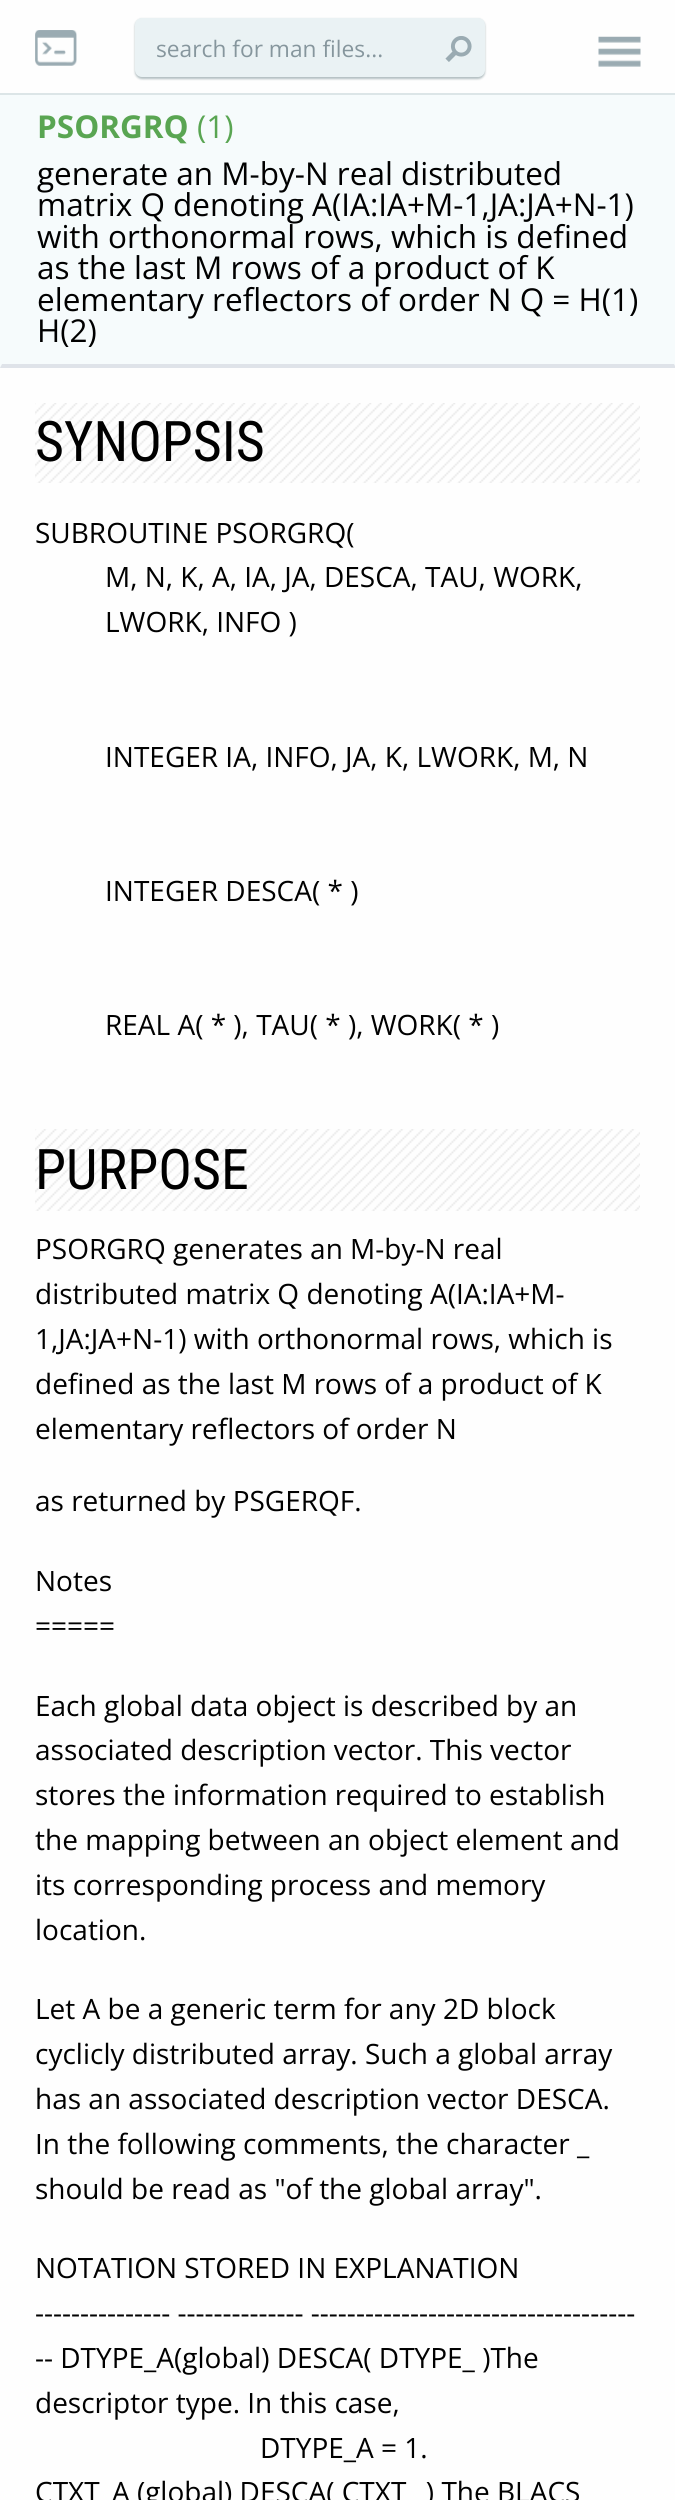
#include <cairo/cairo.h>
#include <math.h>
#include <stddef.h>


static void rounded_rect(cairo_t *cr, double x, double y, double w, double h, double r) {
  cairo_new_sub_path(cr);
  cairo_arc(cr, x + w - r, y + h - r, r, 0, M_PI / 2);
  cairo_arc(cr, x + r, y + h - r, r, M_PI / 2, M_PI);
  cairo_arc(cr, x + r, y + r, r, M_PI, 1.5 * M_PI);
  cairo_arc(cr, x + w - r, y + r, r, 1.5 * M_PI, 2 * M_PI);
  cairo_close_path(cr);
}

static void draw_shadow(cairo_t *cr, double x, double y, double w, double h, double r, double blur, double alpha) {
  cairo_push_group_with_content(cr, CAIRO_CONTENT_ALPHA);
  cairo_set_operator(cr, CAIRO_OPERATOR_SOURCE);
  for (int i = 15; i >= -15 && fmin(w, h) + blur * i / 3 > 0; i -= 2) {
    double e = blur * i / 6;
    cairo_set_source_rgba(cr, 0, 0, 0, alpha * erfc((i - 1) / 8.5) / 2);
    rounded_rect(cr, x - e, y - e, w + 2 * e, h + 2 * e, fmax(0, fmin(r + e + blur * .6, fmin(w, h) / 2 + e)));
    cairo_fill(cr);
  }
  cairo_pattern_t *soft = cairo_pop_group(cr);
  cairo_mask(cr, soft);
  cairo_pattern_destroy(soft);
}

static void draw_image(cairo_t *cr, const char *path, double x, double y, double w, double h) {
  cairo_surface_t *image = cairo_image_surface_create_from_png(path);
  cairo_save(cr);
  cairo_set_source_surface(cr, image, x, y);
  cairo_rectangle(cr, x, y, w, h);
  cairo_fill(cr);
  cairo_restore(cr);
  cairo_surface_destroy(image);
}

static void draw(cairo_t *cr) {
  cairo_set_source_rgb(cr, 254 / 255.0, 254 / 255.0, 254 / 255.0);
  cairo_paint(cr);
  cairo_set_source_rgb(cr, 220 / 255.0, 229 / 255.0, 231 / 255.0);
  cairo_rectangle(cr, 0, 93, 675, 2);
  cairo_fill(cr);
  draw_image(cr, "images/1.png", 35, 30, 42, 36);
  cairo_set_source_rgb(cr, 6 / 255.0, 47 / 255.0, 55 / 255.0);
  draw_shadow(cr, 135, 19, 350, 60, 7, 1, 0.3);
  cairo_set_source_rgb(cr, 234 / 255.0, 242 / 255.0, 244 / 255.0);
  rounded_rect(cr, 135, 18, 350, 59, 7);
  cairo_fill(cr);
  draw_image(cr, "images/2.png", 445, 36, 27, 26);
  draw_image(cr, "images/3.png", 598, 36, 43, 31);
  cairo_set_source_rgb(cr, 246 / 255.0, 251 / 255.0, 252 / 255.0);
  cairo_rectangle(cr, 0, 95, 675, 273);
  cairo_fill(cr);
  cairo_set_source_rgb(cr, 223 / 255.0, 227 / 255.0, 233 / 255.0);
  cairo_new_path(cr);
  cairo_move_to(cr, 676, 368);
  cairo_line_to(cr, 0, 368);
  cairo_line_to(cr, 2, 364);
  cairo_line_to(cr, 674, 364);
  cairo_close_path(cr);
  cairo_fill(cr);
  draw_image(cr, "images/4.png", 35, 403, 605, 80);
  draw_image(cr, "images/5.png", 35, 1129, 605, 82);
  cairo_select_font_face(cr, "Open Sans", CAIRO_FONT_SLANT_NORMAL, CAIRO_FONT_WEIGHT_NORMAL);
  cairo_set_font_size(cr, 22.75);
  cairo_set_source_rgb(cr, 134 / 255.0, 150 / 255.0, 157 / 255.0);
  cairo_move_to(cr, 156, 57);
  cairo_show_text(cr, "search for man files...");
  cairo_select_font_face(cr, "Open Sans", CAIRO_FONT_SLANT_NORMAL, CAIRO_FONT_WEIGHT_BOLD);
  cairo_set_font_size(cr, 31.5);
  cairo_set_source_rgb(cr, 89 / 255.0, 165 / 255.0, 82 / 255.0);
  cairo_move_to(cr, 37, 138);
  cairo_show_text(cr, "PSORGRQ");
  cairo_select_font_face(cr, "Open Sans", CAIRO_FONT_SLANT_NORMAL, CAIRO_FONT_WEIGHT_NORMAL);
  cairo_move_to(cr, 197, 138);
  cairo_show_text(cr, "(1)");
  cairo_set_source_rgb(cr, 0, 0, 0);
  cairo_move_to(cr, 37, 185);
  cairo_show_text(cr, "generate an M-by-N real distributed");
  cairo_move_to(cr, 37, 216);
  cairo_show_text(cr, "matrix Q denoting A(IA:IA+M-1,JA:JA+N-1)");
  cairo_move_to(cr, 37, 248);
  cairo_show_text(cr, "with orthonormal rows, which is defined");
  cairo_move_to(cr, 37, 279);
  cairo_show_text(cr, "as the last M rows of a product of K");
  cairo_move_to(cr, 37, 311);
  cairo_show_text(cr, "elementary reflectors of order N Q = H(1)");
  cairo_move_to(cr, 37, 342);
  cairo_show_text(cr, "H(2)");
  cairo_select_font_face(cr, "Roboto Condensed", CAIRO_FONT_SLANT_NORMAL, CAIRO_FONT_WEIGHT_NORMAL);
  cairo_set_font_size(cr, 56);
  cairo_move_to(cr, 35, 461);
  cairo_show_text(cr, "SYNOPSIS");
  cairo_select_font_face(cr, "Open Sans", CAIRO_FONT_SLANT_NORMAL, CAIRO_FONT_WEIGHT_NORMAL);
  cairo_set_font_size(cr, 28);
  cairo_move_to(cr, 35, 543);
  cairo_show_text(cr, "SUBROUTINE PSORGRQ(");
  cairo_move_to(cr, 105, 587);
  cairo_show_text(cr, "M, N, K, A, IA, JA, DESCA, TAU, WORK,");
  cairo_move_to(cr, 105, 632);
  cairo_show_text(cr, "LWORK, INFO )");
  cairo_move_to(cr, 105, 767);
  cairo_show_text(cr, "INTEGER IA, INFO, JA, K, LWORK, M, N");
  cairo_move_to(cr, 105, 901);
  cairo_show_text(cr, "INTEGER DESCA( * )");
  cairo_move_to(cr, 105, 1035);
  cairo_show_text(cr, "REAL A( * ), TAU( * ), WORK( * )");
  cairo_select_font_face(cr, "Roboto Condensed", CAIRO_FONT_SLANT_NORMAL, CAIRO_FONT_WEIGHT_NORMAL);
  cairo_set_font_size(cr, 56);
  cairo_move_to(cr, 35, 1189);
  cairo_show_text(cr, "PURPOSE");
  cairo_select_font_face(cr, "Open Sans", CAIRO_FONT_SLANT_NORMAL, CAIRO_FONT_WEIGHT_NORMAL);
  cairo_set_font_size(cr, 28);
  cairo_move_to(cr, 35, 1259);
  cairo_show_text(cr, "PSORGRQ generates an M-by-N real");
  cairo_move_to(cr, 35, 1304);
  cairo_show_text(cr, "distributed matrix Q denoting A(IA:IA+M-");
  cairo_move_to(cr, 35, 1349);
  cairo_show_text(cr, "1,JA:JA+N-1) with orthonormal rows, which is");
  cairo_move_to(cr, 35, 1394);
  cairo_show_text(cr, "defined as the last M rows of a product of K");
  cairo_move_to(cr, 35, 1439);
  cairo_show_text(cr, "elementary reflectors of order N");
  cairo_move_to(cr, 35, 1511);
  cairo_show_text(cr, "as returned by PSGERQF.");
  cairo_move_to(cr, 35, 1591);
  cairo_show_text(cr, "Notes");
  cairo_move_to(cr, 35, 1636);
  cairo_show_text(cr, "=====");
  cairo_move_to(cr, 35, 1716);
  cairo_show_text(cr, "Each global data object is described by an");
  cairo_move_to(cr, 35, 1760);
  cairo_show_text(cr, "associated description vector. This vector");
  cairo_move_to(cr, 35, 1805);
  cairo_show_text(cr, "stores the information required to establish");
  cairo_move_to(cr, 35, 1850);
  cairo_show_text(cr, "the mapping between an object element and");
  cairo_move_to(cr, 35, 1895);
  cairo_show_text(cr, "its corresponding process and memory");
  cairo_move_to(cr, 35, 1940);
  cairo_show_text(cr, "location.");
  cairo_move_to(cr, 35, 2019);
  cairo_show_text(cr, "Let A be a generic term for any 2D block");
  cairo_move_to(cr, 35, 2064);
  cairo_show_text(cr, "cyclicly distributed array. Such a global array");
  cairo_move_to(cr, 35, 2109);
  cairo_show_text(cr, "has an associated description vector DESCA.");
  cairo_move_to(cr, 35, 2154);
  cairo_show_text(cr, "In the following comments, the character _");
  cairo_move_to(cr, 35, 2199);
  cairo_show_text(cr, "should be read as \"of the global array\".");
  cairo_move_to(cr, 35, 2278);
  cairo_show_text(cr, "NOTATION STORED IN EXPLANATION");
  cairo_move_to(cr, 35, 2323);
  cairo_show_text(cr, "--------------- -------------- ------------------------------------");
  cairo_move_to(cr, 35, 2368);
  cairo_show_text(cr, "-- DTYPE_A(global) DESCA( DTYPE_ )The");
  cairo_move_to(cr, 35, 2413);
  cairo_show_text(cr, "descriptor type. In this case,");
  cairo_move_to(cr, 260, 2458);
  cairo_show_text(cr, "DTYPE_A = 1.");
  cairo_move_to(cr, 35, 2502);
  cairo_show_text(cr, "CTXT_A (global) DESCA( CTXT_ ) The BLACS");
}

int main(void) {
  cairo_surface_t *surface = cairo_image_surface_create(CAIRO_FORMAT_RGB24, 675, 2500);
  cairo_t *cr = cairo_create(surface);
  cairo_font_options_t *options = cairo_font_options_create();
  cairo_font_options_set_hint_metrics(options, CAIRO_HINT_METRICS_OFF);
  cairo_font_options_set_hint_style(options, CAIRO_HINT_STYLE_NONE);
  cairo_set_font_options(cr, options);
  cairo_set_miter_limit(cr, 4);
  draw(cr);
  cairo_surface_write_to_png(surface, "out.png");
  cairo_font_options_destroy(options);
  cairo_destroy(cr);
  cairo_surface_destroy(surface);
  return 0;
}
